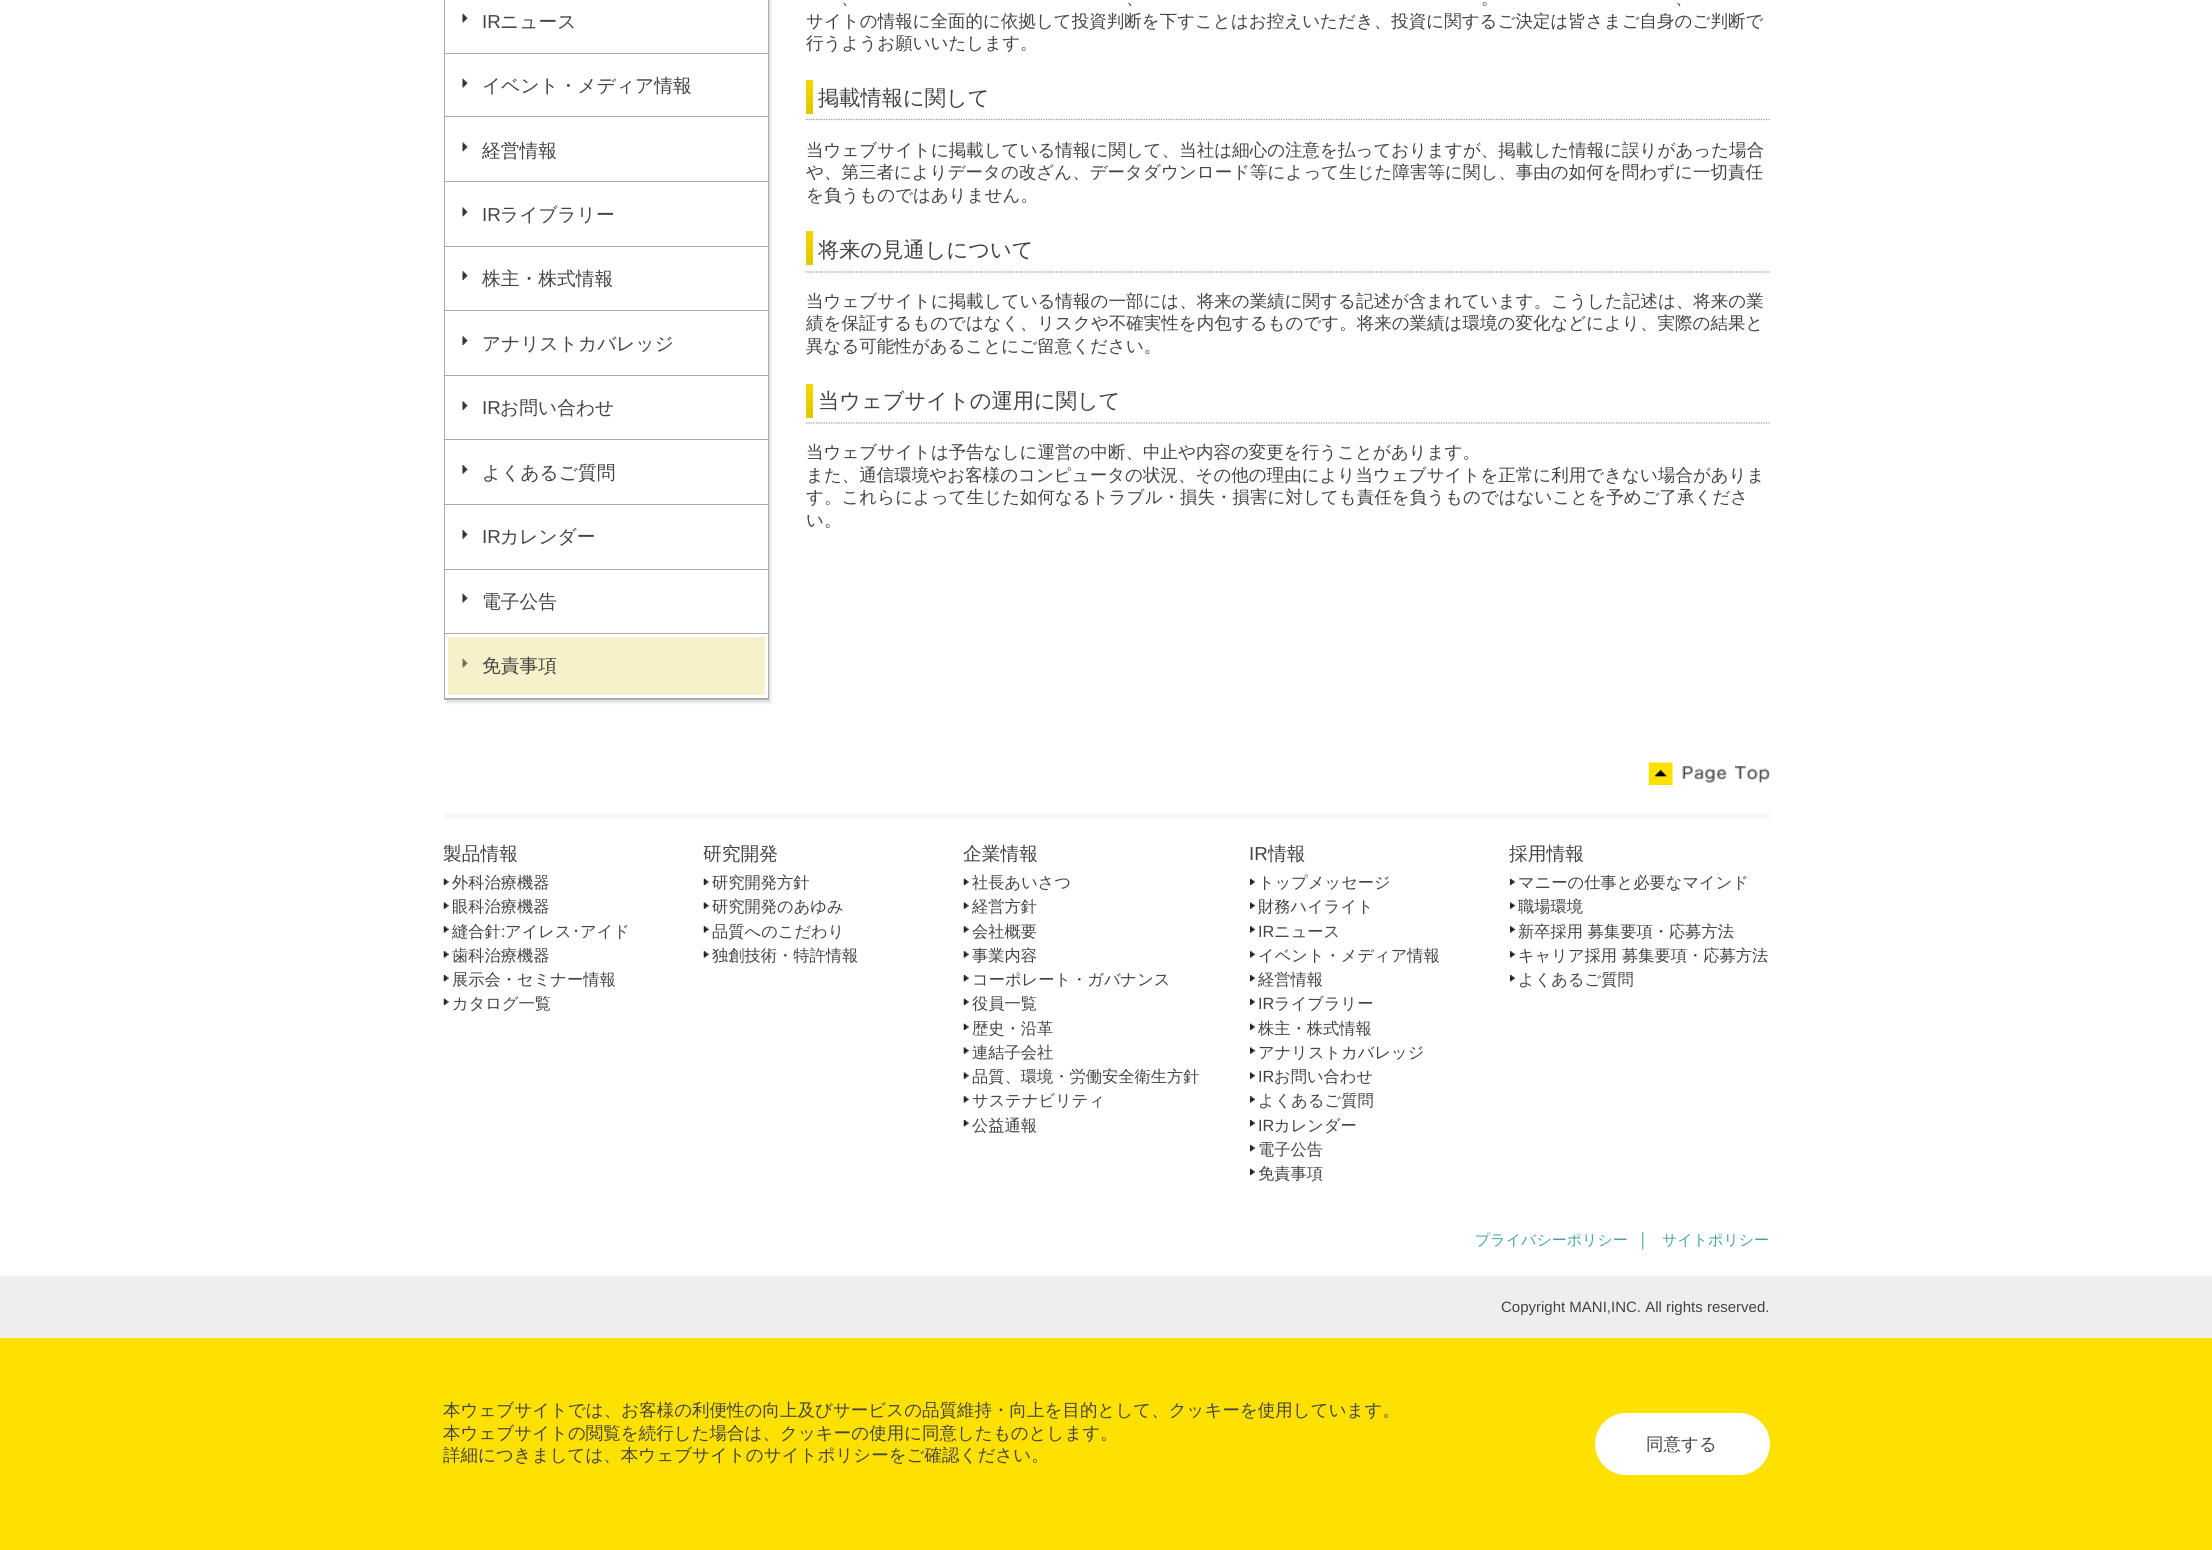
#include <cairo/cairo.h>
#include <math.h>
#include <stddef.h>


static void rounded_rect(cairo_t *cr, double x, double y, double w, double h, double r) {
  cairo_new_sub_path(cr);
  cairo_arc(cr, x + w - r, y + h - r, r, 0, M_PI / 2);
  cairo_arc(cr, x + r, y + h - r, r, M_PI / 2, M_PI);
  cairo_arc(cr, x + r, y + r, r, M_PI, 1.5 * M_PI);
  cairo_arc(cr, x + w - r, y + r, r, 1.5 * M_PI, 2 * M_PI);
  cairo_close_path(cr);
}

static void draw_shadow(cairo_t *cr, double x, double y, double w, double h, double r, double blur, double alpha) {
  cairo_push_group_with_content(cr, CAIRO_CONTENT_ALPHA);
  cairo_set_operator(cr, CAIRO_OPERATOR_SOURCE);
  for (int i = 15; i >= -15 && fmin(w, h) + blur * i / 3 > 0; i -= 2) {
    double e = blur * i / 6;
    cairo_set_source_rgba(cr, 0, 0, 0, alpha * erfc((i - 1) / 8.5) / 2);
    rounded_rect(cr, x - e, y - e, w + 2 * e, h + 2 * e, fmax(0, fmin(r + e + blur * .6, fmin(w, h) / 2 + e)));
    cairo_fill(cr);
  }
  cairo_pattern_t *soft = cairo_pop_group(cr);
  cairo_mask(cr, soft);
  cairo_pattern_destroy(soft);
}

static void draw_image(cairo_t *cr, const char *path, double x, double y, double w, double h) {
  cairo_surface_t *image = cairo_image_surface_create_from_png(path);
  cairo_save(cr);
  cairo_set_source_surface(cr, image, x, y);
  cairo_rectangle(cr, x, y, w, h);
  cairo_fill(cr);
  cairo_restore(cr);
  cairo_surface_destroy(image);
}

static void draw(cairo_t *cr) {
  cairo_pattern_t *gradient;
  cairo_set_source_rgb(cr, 1, 1, 1);
  cairo_paint(cr);
  cairo_save(cr);
  cairo_set_fill_rule(cr, CAIRO_FILL_RULE_EVEN_ODD);
  cairo_new_path(cr);
  cairo_move_to(cr, 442, 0);
  cairo_line_to(cr, 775, 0);
  cairo_line_to(cr, 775, 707);
  cairo_line_to(cr, 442, 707);
  cairo_close_path(cr);
  cairo_move_to(cr, 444, -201);
  cairo_line_to(cr, 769, -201);
  cairo_line_to(cr, 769, 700);
  cairo_line_to(cr, 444, 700);
  cairo_close_path(cr);
  cairo_clip(cr);
  cairo_set_source_rgb(cr, 225 / 255.0, 225 / 255.0, 225 / 255.0);
  draw_shadow(cr, 446, -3, 325, 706, 0, 1, 1);
  cairo_restore(cr);
  cairo_rectangle(cr, 444.5, -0.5, 324, 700);
  cairo_set_source_rgb(cr, 170 / 255.0, 170 / 255.0, 170 / 255.0);
  cairo_set_line_width(cr, 1);
  cairo_stroke(cr);
  cairo_rectangle(cr, 445, 53, 323, 1);
  cairo_fill(cr);
  draw_image(cr, "images/1.png", 462, 13, 6, 10);
  cairo_rectangle(cr, 445, 116, 323, 1);
  cairo_fill(cr);
  draw_image(cr, "images/1.png", 462, 78, 6, 10);
  cairo_rectangle(cr, 445, 181, 323, 1);
  cairo_fill(cr);
  draw_image(cr, "images/2.png", 462, 142, 6, 10);
  cairo_rectangle(cr, 445, 246, 323, 1);
  cairo_fill(cr);
  draw_image(cr, "images/2.png", 462, 207, 6, 10);
  cairo_rectangle(cr, 445, 310, 323, 1);
  cairo_fill(cr);
  draw_image(cr, "images/3.png", 462, 271, 6, 9);
  cairo_rectangle(cr, 445, 375, 323, 1);
  cairo_fill(cr);
  draw_image(cr, "images/3.png", 462, 336, 6, 9);
  cairo_rectangle(cr, 445, 439, 323, 1);
  cairo_fill(cr);
  draw_image(cr, "images/3.png", 462, 401, 6, 9);
  cairo_rectangle(cr, 445, 504, 323, 1);
  cairo_fill(cr);
  draw_image(cr, "images/4.png", 462, 465, 6, 9);
  cairo_rectangle(cr, 445, 569, 323, 1);
  cairo_fill(cr);
  draw_image(cr, "images/4.png", 462, 530, 6, 9);
  cairo_rectangle(cr, 445, 633, 323, 1);
  cairo_fill(cr);
  draw_image(cr, "images/1.png", 462, 593, 6, 10);
  cairo_rectangle(cr, 445, 698, 323, 1);
  cairo_fill(cr);
  cairo_set_source_rgb(cr, 246 / 255.0, 241 / 255.0, 201 / 255.0);
  cairo_rectangle(cr, 448, 637, 317, 58);
  cairo_fill(cr);
  draw_image(cr, "images/5.png", 462, 658, 6, 10);
  cairo_new_path(cr);
  cairo_move_to(cr, 806, 119.5);
  cairo_line_to(cr, 1770, 119.5);
  cairo_set_source_rgb(cr, 149 / 255.0, 149 / 255.0, 150 / 255.0);
  cairo_set_line_width(cr, 1.2);
  cairo_set_dash(cr, (double[]){1.25, 1.25}, 2, 0);
  cairo_stroke(cr);
  gradient = cairo_pattern_create_linear(809, 114, 809, 80);
  cairo_pattern_add_color_stop_rgba(gradient, 0, 227 / 255.0, 198 / 255.0, 0, 1);
  cairo_pattern_add_color_stop_rgba(gradient, 1, 244 / 255.0, 214 / 255.0, 0, 1);
  cairo_set_source(cr, gradient);
  cairo_pattern_destroy(gradient);
  cairo_rectangle(cr, 806, 80, 7, 34);
  cairo_fill(cr);
  cairo_new_path(cr);
  cairo_move_to(cr, 806, 272);
  cairo_line_to(cr, 1770, 272);
  cairo_set_source_rgb(cr, 149 / 255.0, 149 / 255.0, 150 / 255.0);
  cairo_stroke(cr);
  gradient = cairo_pattern_create_linear(809, 265, 809, 231);
  cairo_pattern_add_color_stop_rgba(gradient, 0, 227 / 255.0, 198 / 255.0, 0, 1);
  cairo_pattern_add_color_stop_rgba(gradient, 1, 244 / 255.0, 214 / 255.0, 0, 1);
  cairo_set_source(cr, gradient);
  cairo_pattern_destroy(gradient);
  cairo_rectangle(cr, 806, 231, 7, 34);
  cairo_fill(cr);
  cairo_new_path(cr);
  cairo_move_to(cr, 806, 423);
  cairo_line_to(cr, 1770, 423);
  cairo_set_source_rgb(cr, 149 / 255.0, 149 / 255.0, 150 / 255.0);
  cairo_stroke(cr);
  gradient = cairo_pattern_create_linear(809, 418, 809, 384);
  cairo_pattern_add_color_stop_rgba(gradient, 0, 227 / 255.0, 198 / 255.0, 0, 1);
  cairo_pattern_add_color_stop_rgba(gradient, 1, 244 / 255.0, 214 / 255.0, 0, 1);
  cairo_set_source(cr, gradient);
  cairo_pattern_destroy(gradient);
  cairo_rectangle(cr, 806, 384, 7, 34);
  cairo_fill(cr);
  draw_image(cr, "images/6.png", 1648, 762, 122, 23);
  cairo_set_source_rgb(cr, 245 / 255.0, 245 / 255.0, 245 / 255.0);
  cairo_rectangle(cr, 444, 814, 1326, 4);
  cairo_fill(cr);
  draw_image(cr, "images/7.png", 443, 878, 6, 7);
  draw_image(cr, "images/8.png", 443, 902, 6, 7);
  draw_image(cr, "images/9.png", 443, 926, 6, 7);
  draw_image(cr, "images/9.png", 443, 951, 6, 7);
  draw_image(cr, "images/10.png", 443, 975, 6, 7);
  draw_image(cr, "images/7.png", 443, 998, 6, 7);
  draw_image(cr, "images/7.png", 703, 878, 6, 7);
  draw_image(cr, "images/8.png", 703, 902, 6, 7);
  draw_image(cr, "images/9.png", 703, 926, 6, 7);
  draw_image(cr, "images/9.png", 703, 951, 6, 7);
  draw_image(cr, "images/11.png", 963, 878, 6, 7);
  draw_image(cr, "images/12.png", 963, 902, 6, 7);
  draw_image(cr, "images/13.png", 963, 926, 6, 7);
  draw_image(cr, "images/13.png", 963, 951, 6, 7);
  draw_image(cr, "images/14.png", 963, 975, 6, 7);
  draw_image(cr, "images/11.png", 963, 998, 6, 7);
  draw_image(cr, "images/11.png", 963, 1023, 6, 7);
  draw_image(cr, "images/12.png", 963, 1047, 6, 7);
  draw_image(cr, "images/12.png", 963, 1072, 6, 7);
  draw_image(cr, "images/13.png", 963, 1096, 6, 7);
  draw_image(cr, "images/14.png", 963, 1120, 6, 7);
  draw_image(cr, "images/15.png", 1250, 878, 5, 7);
  draw_image(cr, "images/16.png", 1250, 902, 5, 7);
  draw_image(cr, "images/17.png", 1250, 926, 5, 7);
  draw_image(cr, "images/17.png", 1250, 951, 5, 7);
  draw_image(cr, "images/18.png", 1250, 975, 5, 7);
  draw_image(cr, "images/15.png", 1250, 998, 5, 7);
  draw_image(cr, "images/15.png", 1250, 1023, 5, 7);
  draw_image(cr, "images/16.png", 1250, 1047, 5, 7);
  draw_image(cr, "images/16.png", 1250, 1072, 5, 7);
  draw_image(cr, "images/17.png", 1250, 1096, 5, 7);
  draw_image(cr, "images/18.png", 1250, 1120, 5, 7);
  draw_image(cr, "images/18.png", 1250, 1145, 5, 7);
  draw_image(cr, "images/15.png", 1250, 1168, 5, 7);
  draw_image(cr, "images/15.png", 1510, 878, 5, 7);
  draw_image(cr, "images/16.png", 1510, 902, 5, 7);
  draw_image(cr, "images/17.png", 1510, 926, 5, 7);
  draw_image(cr, "images/17.png", 1510, 951, 5, 7);
  draw_image(cr, "images/18.png", 1510, 975, 5, 7);
  cairo_set_source_rgb(cr, 238 / 255.0, 238 / 255.0, 238 / 255.0);
  cairo_rectangle(cr, 0, 1276, 2212, 62);
  cairo_fill(cr);
  cairo_set_source_rgb(cr, 1, 225 / 255.0, 0);
  cairo_rectangle(cr, 0, 1338, 2212, 212);
  cairo_fill(cr);
  cairo_set_source_rgb(cr, 1, 1, 1);
  rounded_rect(cr, 1595, 1413, 175, 62, 31);
  cairo_fill(cr);
  cairo_select_font_face(cr, "Liberation Sans", CAIRO_FONT_SLANT_NORMAL, CAIRO_FONT_WEIGHT_NORMAL);
  cairo_set_font_size(cr, 18.75);
  cairo_set_source_rgb(cr, 68 / 255.0, 68 / 255.0, 68 / 255.0);
  cairo_move_to(cr, 482, 28);
  cairo_show_text(cr, "IR");
  cairo_select_font_face(cr, "WenQuanYi Zen Hei Medium", CAIRO_FONT_SLANT_NORMAL, CAIRO_FONT_WEIGHT_NORMAL);
  cairo_move_to(cr, 500, 28);
  cairo_show_text(cr, "ニュース");
  cairo_move_to(cr, 482, 92);
  cairo_show_text(cr, "イベント・メディア情報");
  cairo_move_to(cr, 482, 157);
  cairo_show_text(cr, "経営情報");
  cairo_select_font_face(cr, "Liberation Sans", CAIRO_FONT_SLANT_NORMAL, CAIRO_FONT_WEIGHT_NORMAL);
  cairo_move_to(cr, 482, 221);
  cairo_show_text(cr, "IR");
  cairo_select_font_face(cr, "WenQuanYi Zen Hei Medium", CAIRO_FONT_SLANT_NORMAL, CAIRO_FONT_WEIGHT_NORMAL);
  cairo_move_to(cr, 500, 221);
  cairo_show_text(cr, "ライブラリー");
  cairo_move_to(cr, 482, 285);
  cairo_show_text(cr, "株主・株式情報");
  cairo_move_to(cr, 482, 350);
  cairo_show_text(cr, "アナリストカバレッジ");
  cairo_select_font_face(cr, "Liberation Sans", CAIRO_FONT_SLANT_NORMAL, CAIRO_FONT_WEIGHT_NORMAL);
  cairo_move_to(cr, 482, 414);
  cairo_show_text(cr, "IR");
  cairo_select_font_face(cr, "WenQuanYi Zen Hei Medium", CAIRO_FONT_SLANT_NORMAL, CAIRO_FONT_WEIGHT_NORMAL);
  cairo_move_to(cr, 500, 414);
  cairo_show_text(cr, "お問い合わせ");
  cairo_move_to(cr, 482, 479);
  cairo_show_text(cr, "よくあるご質問");
  cairo_select_font_face(cr, "Liberation Sans", CAIRO_FONT_SLANT_NORMAL, CAIRO_FONT_WEIGHT_NORMAL);
  cairo_move_to(cr, 482, 543);
  cairo_show_text(cr, "IR");
  cairo_select_font_face(cr, "WenQuanYi Zen Hei Medium", CAIRO_FONT_SLANT_NORMAL, CAIRO_FONT_WEIGHT_NORMAL);
  cairo_move_to(cr, 500, 543);
  cairo_show_text(cr, "カレンダー");
  cairo_move_to(cr, 482, 608);
  cairo_show_text(cr, "電子公告");
  cairo_move_to(cr, 482, 672);
  cairo_show_text(cr, "免責事項");
  cairo_set_font_size(cr, 17.5);
  cairo_move_to(cr, 841, 4);
  cairo_show_text(cr, "、");
  cairo_move_to(cr, 1126, 4);
  cairo_show_text(cr, "、");
  cairo_move_to(cr, 1481, 4);
  cairo_show_text(cr, "。");
  cairo_move_to(cr, 1675, 4);
  cairo_show_text(cr, "、");
  cairo_move_to(cr, 806, 27);
  cairo_show_text(cr, "サイトの情報に全面的に依拠して投資判断を下すことはお控えいただき、投資に関するご決定は皆さまご自身のご判断で");
  cairo_move_to(cr, 806, 49);
  cairo_show_text(cr, "行うようお願いいたします。");
  cairo_set_font_size(cr, 21.25);
  cairo_move_to(cr, 818, 105);
  cairo_show_text(cr, "掲載情報に関して");
  cairo_set_font_size(cr, 17.5);
  cairo_move_to(cr, 806, 156);
  cairo_show_text(cr, "当ウェブサイトに掲載している情報に関して、当社は細心の注意を払っておりますが、掲載した情報に誤りがあった場合");
  cairo_move_to(cr, 806, 178);
  cairo_show_text(cr, "や、第三者によりデータの改ざん、データダウンロード等によって生じた障害等に関し、事由の如何を問わずに一切責任");
  cairo_move_to(cr, 806, 201);
  cairo_show_text(cr, "を負うものではありません。");
  cairo_set_font_size(cr, 21.25);
  cairo_move_to(cr, 818, 257);
  cairo_show_text(cr, "将来の見通しについて");
  cairo_set_font_size(cr, 17.5);
  cairo_move_to(cr, 806, 307);
  cairo_show_text(cr, "当ウェブサイトに掲載している情報の一部には、将来の業績に関する記述が含まれています。こうした記述は、将来の業");
  cairo_move_to(cr, 806, 329);
  cairo_show_text(cr, "績を保証するものではなく、リスクや不確実性を内包するものです。将来の業績は環境の変化などにより、実際の結果と");
  cairo_move_to(cr, 806, 352);
  cairo_show_text(cr, "異なる可能性があることにご留意ください。");
  cairo_set_font_size(cr, 21.25);
  cairo_move_to(cr, 818, 408);
  cairo_show_text(cr, "当ウェブサイトの運用に関して");
  cairo_set_font_size(cr, 17.5);
  cairo_move_to(cr, 806, 458);
  cairo_show_text(cr, "当ウェブサイトは予告なしに運営の中断、中止や内容の変更を行うことがあります。");
  cairo_move_to(cr, 806, 481);
  cairo_show_text(cr, "また、通信環境やお客様のコンピュータの状況、その他の理由により当ウェブサイトを正常に利用できない場合がありま");
  cairo_move_to(cr, 806, 503);
  cairo_show_text(cr, "す。これらによって生じた如何なるトラブル・損失・損害に対しても責任を負うものではないことを予めご了承くださ");
  cairo_move_to(cr, 806, 526);
  cairo_show_text(cr, "い。");
  cairo_set_font_size(cr, 18.75);
  cairo_move_to(cr, 443, 860);
  cairo_show_text(cr, "製品情報");
  cairo_set_font_size(cr, 16.25);
  cairo_move_to(cr, 452, 888);
  cairo_show_text(cr, "外科治療機器");
  cairo_move_to(cr, 452, 912);
  cairo_show_text(cr, "眼科治療機器");
  cairo_move_to(cr, 452, 937);
  cairo_show_text(cr, "縫合針");
  cairo_select_font_face(cr, "Liberation Sans", CAIRO_FONT_SLANT_NORMAL, CAIRO_FONT_WEIGHT_NORMAL);
  cairo_move_to(cr, 501, 937);
  cairo_show_text(cr, ":");
  cairo_select_font_face(cr, "WenQuanYi Zen Hei Medium", CAIRO_FONT_SLANT_NORMAL, CAIRO_FONT_WEIGHT_NORMAL);
  cairo_move_to(cr, 505, 937);
  cairo_show_text(cr, "アイレス");
  cairo_select_font_face(cr, "IPAPGothic", CAIRO_FONT_SLANT_NORMAL, CAIRO_FONT_WEIGHT_NORMAL);
  cairo_move_to(cr, 572, 937);
  cairo_show_text(cr, "･");
  cairo_select_font_face(cr, "WenQuanYi Zen Hei Medium", CAIRO_FONT_SLANT_NORMAL, CAIRO_FONT_WEIGHT_NORMAL);
  cairo_move_to(cr, 580, 937);
  cairo_show_text(cr, "アイド");
  cairo_move_to(cr, 452, 961);
  cairo_show_text(cr, "歯科治療機器");
  cairo_move_to(cr, 452, 985);
  cairo_show_text(cr, "展示会・セミナー情報");
  cairo_move_to(cr, 452, 1009);
  cairo_show_text(cr, "カタログ一覧");
  cairo_set_font_size(cr, 18.75);
  cairo_move_to(cr, 703, 860);
  cairo_show_text(cr, "研究開発");
  cairo_set_font_size(cr, 16.25);
  cairo_move_to(cr, 712, 888);
  cairo_show_text(cr, "研究開発方針");
  cairo_move_to(cr, 712, 912);
  cairo_show_text(cr, "研究開発のあゆみ");
  cairo_move_to(cr, 712, 937);
  cairo_show_text(cr, "品質へのこだわり");
  cairo_move_to(cr, 712, 961);
  cairo_show_text(cr, "独創技術・特許情報");
  cairo_set_font_size(cr, 18.75);
  cairo_move_to(cr, 963, 860);
  cairo_show_text(cr, "企業情報");
  cairo_set_font_size(cr, 16.25);
  cairo_move_to(cr, 972, 888);
  cairo_show_text(cr, "社長あいさつ");
  cairo_move_to(cr, 972, 912);
  cairo_show_text(cr, "経営方針");
  cairo_move_to(cr, 972, 937);
  cairo_show_text(cr, "会社概要");
  cairo_move_to(cr, 972, 961);
  cairo_show_text(cr, "事業内容");
  cairo_move_to(cr, 972, 985);
  cairo_show_text(cr, "コーポレート・ガバナンス");
  cairo_move_to(cr, 972, 1009);
  cairo_show_text(cr, "役員一覧");
  cairo_move_to(cr, 972, 1034);
  cairo_show_text(cr, "歴史・沿革");
  cairo_move_to(cr, 972, 1058);
  cairo_show_text(cr, "連結子会社");
  cairo_move_to(cr, 972, 1082);
  cairo_show_text(cr, "品質、環境・労働安全衛生方針");
  cairo_move_to(cr, 972, 1106);
  cairo_show_text(cr, "サステナビリティ");
  cairo_move_to(cr, 972, 1131);
  cairo_show_text(cr, "公益通報");
  cairo_select_font_face(cr, "Liberation Sans", CAIRO_FONT_SLANT_NORMAL, CAIRO_FONT_WEIGHT_NORMAL);
  cairo_set_font_size(cr, 18.75);
  cairo_move_to(cr, 1249, 860);
  cairo_show_text(cr, "IR");
  cairo_select_font_face(cr, "WenQuanYi Zen Hei Medium", CAIRO_FONT_SLANT_NORMAL, CAIRO_FONT_WEIGHT_NORMAL);
  cairo_move_to(cr, 1268, 860);
  cairo_show_text(cr, "情報");
  cairo_set_font_size(cr, 16.25);
  cairo_move_to(cr, 1258, 888);
  cairo_show_text(cr, "トップメッセージ");
  cairo_move_to(cr, 1258, 912);
  cairo_show_text(cr, "財務ハイライト");
  cairo_select_font_face(cr, "Liberation Sans", CAIRO_FONT_SLANT_NORMAL, CAIRO_FONT_WEIGHT_NORMAL);
  cairo_move_to(cr, 1258, 937);
  cairo_show_text(cr, "IR");
  cairo_select_font_face(cr, "WenQuanYi Zen Hei Medium", CAIRO_FONT_SLANT_NORMAL, CAIRO_FONT_WEIGHT_NORMAL);
  cairo_move_to(cr, 1274, 937);
  cairo_show_text(cr, "ニュース");
  cairo_move_to(cr, 1258, 961);
  cairo_show_text(cr, "イベント・メディア情報");
  cairo_move_to(cr, 1258, 985);
  cairo_show_text(cr, "経営情報");
  cairo_select_font_face(cr, "Liberation Sans", CAIRO_FONT_SLANT_NORMAL, CAIRO_FONT_WEIGHT_NORMAL);
  cairo_move_to(cr, 1258, 1009);
  cairo_show_text(cr, "IR");
  cairo_select_font_face(cr, "WenQuanYi Zen Hei Medium", CAIRO_FONT_SLANT_NORMAL, CAIRO_FONT_WEIGHT_NORMAL);
  cairo_move_to(cr, 1274, 1009);
  cairo_show_text(cr, "ライブラリー");
  cairo_move_to(cr, 1258, 1034);
  cairo_show_text(cr, "株主・株式情報");
  cairo_move_to(cr, 1258, 1058);
  cairo_show_text(cr, "アナリストカバレッジ");
  cairo_select_font_face(cr, "Liberation Sans", CAIRO_FONT_SLANT_NORMAL, CAIRO_FONT_WEIGHT_NORMAL);
  cairo_move_to(cr, 1258, 1082);
  cairo_show_text(cr, "IR");
  cairo_select_font_face(cr, "WenQuanYi Zen Hei Medium", CAIRO_FONT_SLANT_NORMAL, CAIRO_FONT_WEIGHT_NORMAL);
  cairo_move_to(cr, 1274, 1082);
  cairo_show_text(cr, "お問い合わせ");
  cairo_move_to(cr, 1258, 1106);
  cairo_show_text(cr, "よくあるご質問");
  cairo_select_font_face(cr, "Liberation Sans", CAIRO_FONT_SLANT_NORMAL, CAIRO_FONT_WEIGHT_NORMAL);
  cairo_move_to(cr, 1258, 1131);
  cairo_show_text(cr, "IR");
  cairo_select_font_face(cr, "WenQuanYi Zen Hei Medium", CAIRO_FONT_SLANT_NORMAL, CAIRO_FONT_WEIGHT_NORMAL);
  cairo_move_to(cr, 1274, 1131);
  cairo_show_text(cr, "カレンダー");
  cairo_move_to(cr, 1258, 1155);
  cairo_show_text(cr, "電子公告");
  cairo_move_to(cr, 1258, 1179);
  cairo_show_text(cr, "免責事項");
  cairo_set_font_size(cr, 18.75);
  cairo_move_to(cr, 1509, 860);
  cairo_show_text(cr, "採用情報");
  cairo_set_font_size(cr, 16.25);
  cairo_move_to(cr, 1518, 888);
  cairo_show_text(cr, "マニーの仕事と必要なマインド");
  cairo_move_to(cr, 1518, 912);
  cairo_show_text(cr, "職場環境");
  cairo_move_to(cr, 1518, 937);
  cairo_show_text(cr, "新卒採用 募集要項・応募方法");
  cairo_move_to(cr, 1518, 961);
  cairo_show_text(cr, "キャリア採用 募集要項・応募方法");
  cairo_move_to(cr, 1518, 985);
  cairo_show_text(cr, "よくあるご質問");
  cairo_set_font_size(cr, 15);
  cairo_set_source_rgb(cr, 65 / 255.0, 163 / 255.0, 169 / 255.0);
  cairo_move_to(cr, 1475, 1245);
  cairo_show_text(cr, "プライバシーポリシー");
  cairo_set_font_size(cr, 17.5);
  cairo_move_to(cr, 1634, 1245);
  cairo_show_text(cr, "｜");
  cairo_set_font_size(cr, 15);
  cairo_move_to(cr, 1662, 1245);
  cairo_show_text(cr, "サイトポリシー");
  cairo_select_font_face(cr, "Liberation Sans", CAIRO_FONT_SLANT_NORMAL, CAIRO_FONT_WEIGHT_NORMAL);
  cairo_set_source_rgb(cr, 68 / 255.0, 68 / 255.0, 68 / 255.0);
  cairo_move_to(cr, 1501, 1312);
  cairo_show_text(cr, "Copyright MANI,INC. All rights reserved.");
  cairo_select_font_face(cr, "WenQuanYi Zen Hei Medium", CAIRO_FONT_SLANT_NORMAL, CAIRO_FONT_WEIGHT_NORMAL);
  cairo_set_font_size(cr, 17.5);
  cairo_move_to(cr, 443, 1416);
  cairo_show_text(cr, "本ウェブサイトでは、お客様の利便性の向上及びサービスの品質維持・向上を目的として、クッキーを使用しています。");
  cairo_move_to(cr, 443, 1439);
  cairo_show_text(cr, "本ウェブサイトの閲覧を続行した場合は、クッキーの使用に同意したものとします。");
  cairo_move_to(cr, 443, 1461);
  cairo_show_text(cr, "詳細につきましては、本ウェブサイトのサイトポリシーをご確認ください。");
  cairo_move_to(cr, 1646, 1450);
  cairo_show_text(cr, "同意する");
}

int main(void) {
  cairo_surface_t *surface = cairo_image_surface_create(CAIRO_FORMAT_RGB24, 2212, 1550);
  cairo_t *cr = cairo_create(surface);
  cairo_font_options_t *options = cairo_font_options_create();
  cairo_font_options_set_hint_metrics(options, CAIRO_HINT_METRICS_OFF);
  cairo_font_options_set_hint_style(options, CAIRO_HINT_STYLE_NONE);
  cairo_set_font_options(cr, options);
  cairo_set_miter_limit(cr, 4);
  draw(cr);
  cairo_surface_write_to_png(surface, "out.png");
  cairo_font_options_destroy(options);
  cairo_destroy(cr);
  cairo_surface_destroy(surface);
  return 0;
}
